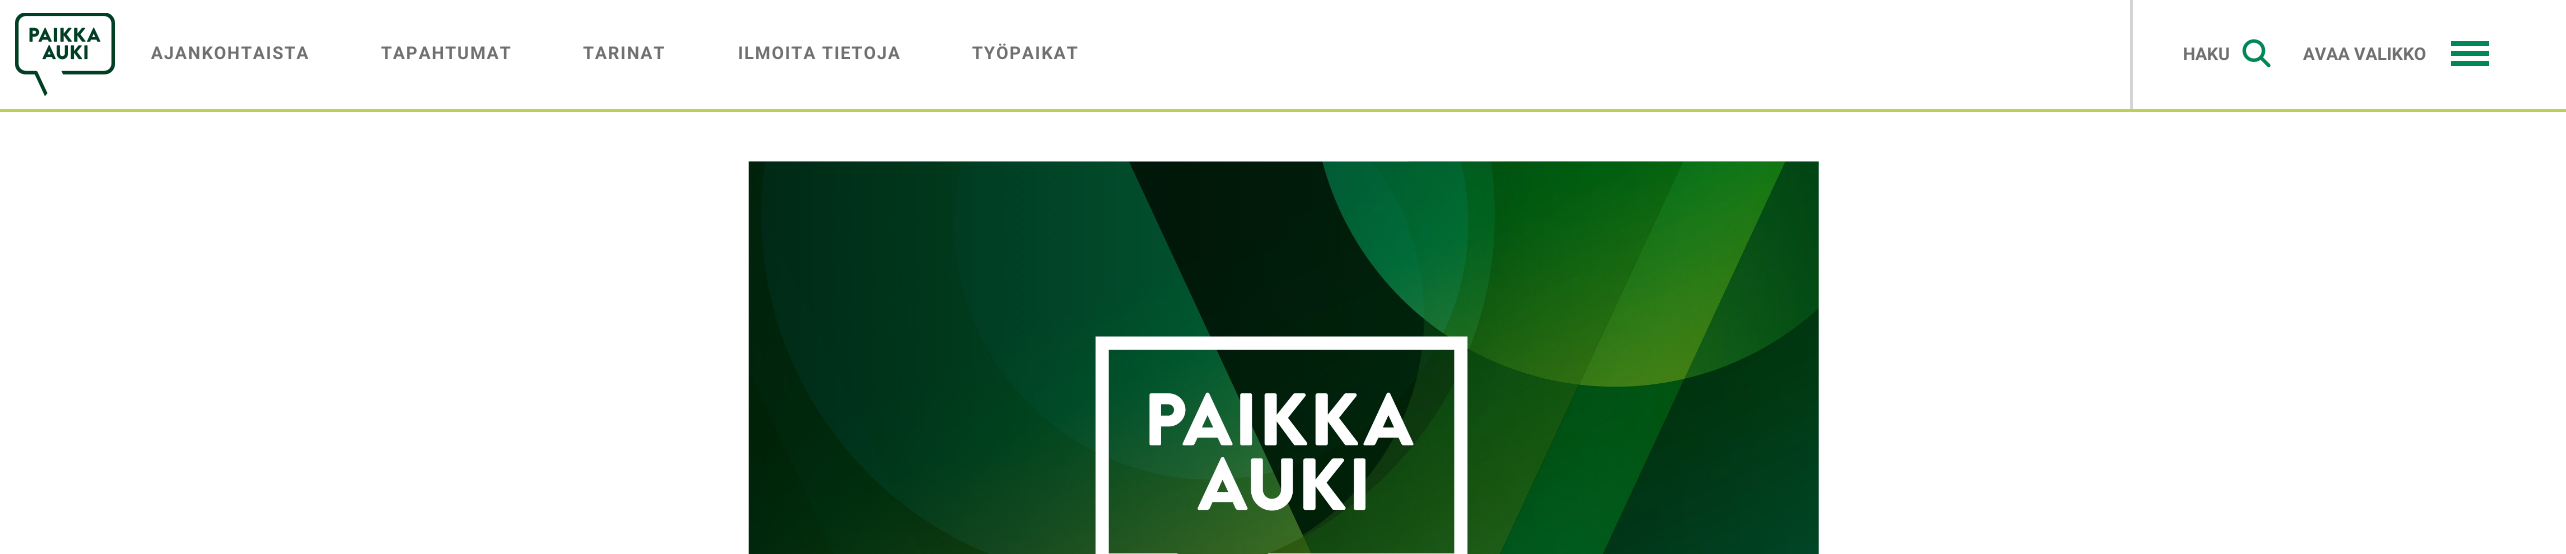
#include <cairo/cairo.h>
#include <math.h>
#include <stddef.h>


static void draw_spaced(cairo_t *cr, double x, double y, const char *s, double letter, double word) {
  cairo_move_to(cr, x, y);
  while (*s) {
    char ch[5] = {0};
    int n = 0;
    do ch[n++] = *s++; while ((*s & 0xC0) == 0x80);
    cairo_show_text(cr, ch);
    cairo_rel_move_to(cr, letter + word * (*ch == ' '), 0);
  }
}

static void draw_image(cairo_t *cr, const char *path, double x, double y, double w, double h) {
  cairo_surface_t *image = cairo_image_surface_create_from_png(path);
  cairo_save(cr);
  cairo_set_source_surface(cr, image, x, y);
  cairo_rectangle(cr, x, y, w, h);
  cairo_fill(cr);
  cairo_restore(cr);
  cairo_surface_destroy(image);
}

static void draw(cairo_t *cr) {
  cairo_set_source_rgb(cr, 1, 1, 1);
  cairo_paint(cr);
  cairo_set_source_rgb(cr, 186 / 255.0, 209 / 255.0, 84 / 255.0);
  cairo_rectangle(cr, 0, 109, 2566, 3);
  cairo_fill(cr);
  draw_image(cr, "images/1.png", 15, 13, 100, 83);
  cairo_set_source_rgb(cr, 212 / 255.0, 212 / 255.0, 212 / 255.0);
  cairo_rectangle(cr, 2130, 0, 3, 109);
  cairo_fill(cr);
  draw_image(cr, "images/2.png", 2242, 39, 29, 29);
  cairo_set_source_rgb(cr, 0, 135 / 255.0, 85 / 255.0);
  cairo_rectangle(cr, 2451, 51, 38, 5);
  cairo_fill(cr);
  cairo_rectangle(cr, 2451, 41, 38, 5);
  cairo_fill(cr);
  cairo_rectangle(cr, 2451, 61, 38, 5);
  cairo_fill(cr);
  draw_image(cr, "images/3.png", 748, 161, 1071, 393);
  cairo_select_font_face(cr, "Roboto", CAIRO_FONT_SLANT_NORMAL, CAIRO_FONT_WEIGHT_BOLD);
  cairo_set_font_size(cr, 17.5);
  cairo_set_source_rgb(cr, 112 / 255.0, 112 / 255.0, 112 / 255.0);
  draw_spaced(cr, 151, 59, "AJANKOHTAISTA", 1.25, 0);
  draw_spaced(cr, 381, 59, "TAPAHTUMAT", 1.25, 0);
  draw_spaced(cr, 583, 59, "TARINAT", 1.25, 0);
  draw_spaced(cr, 738, 59, "ILMOITA TIETOJA", 1.25, 0);
  draw_spaced(cr, 972, 59, "TYÖPAIKAT", 1.25, 0);
  cairo_move_to(cr, 2183, 60);
  cairo_show_text(cr, "HAKU");
  cairo_move_to(cr, 2303, 60);
  cairo_show_text(cr, "AVAA VALIKKO");
}

int main(void) {
  cairo_surface_t *surface = cairo_image_surface_create(CAIRO_FORMAT_RGB24, 2566, 554);
  cairo_t *cr = cairo_create(surface);
  cairo_font_options_t *options = cairo_font_options_create();
  cairo_font_options_set_hint_metrics(options, CAIRO_HINT_METRICS_OFF);
  cairo_font_options_set_hint_style(options, CAIRO_HINT_STYLE_NONE);
  cairo_set_font_options(cr, options);
  cairo_set_miter_limit(cr, 4);
  draw(cr);
  cairo_surface_write_to_png(surface, "out.png");
  cairo_font_options_destroy(options);
  cairo_destroy(cr);
  cairo_surface_destroy(surface);
  return 0;
}
